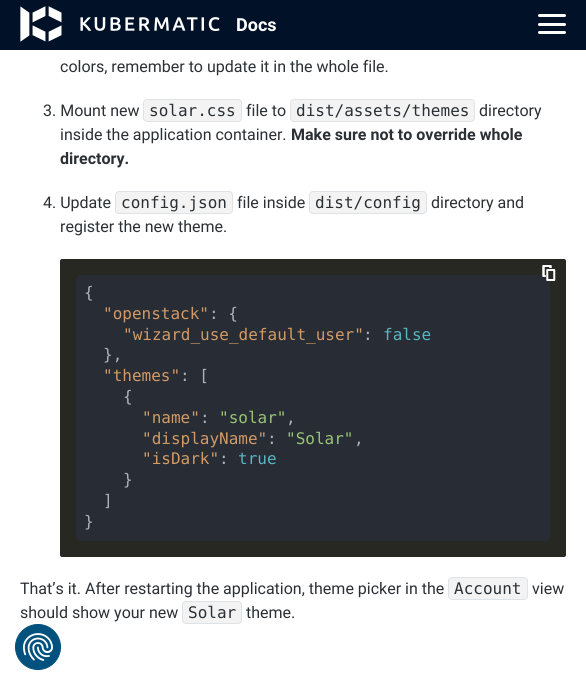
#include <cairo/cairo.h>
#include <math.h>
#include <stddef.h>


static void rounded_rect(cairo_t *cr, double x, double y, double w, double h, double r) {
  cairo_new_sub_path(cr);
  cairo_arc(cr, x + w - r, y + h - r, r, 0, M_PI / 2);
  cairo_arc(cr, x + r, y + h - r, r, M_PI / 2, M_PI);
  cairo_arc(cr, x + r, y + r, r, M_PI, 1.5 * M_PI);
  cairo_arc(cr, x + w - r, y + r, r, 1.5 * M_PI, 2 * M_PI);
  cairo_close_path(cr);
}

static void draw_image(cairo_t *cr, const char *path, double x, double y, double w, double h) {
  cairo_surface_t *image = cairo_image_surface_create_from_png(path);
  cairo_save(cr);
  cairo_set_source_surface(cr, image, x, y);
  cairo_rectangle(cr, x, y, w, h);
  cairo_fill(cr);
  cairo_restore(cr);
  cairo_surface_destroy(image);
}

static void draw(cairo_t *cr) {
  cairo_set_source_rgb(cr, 1, 1, 1);
  cairo_paint(cr);
  cairo_set_source_rgb(cr, 0, 17 / 255.0, 40 / 255.0);
  cairo_rectangle(cr, 0, 0, 586, 50);
  cairo_fill(cr);
  draw_image(cr, "images/1.png", 20, 6, 200, 36);
  cairo_set_source_rgb(cr, 1, 1, 1);
  rounded_rect(cr, 538, 14, 28, 3, 1.5);
  cairo_fill(cr);
  rounded_rect(cr, 538, 23, 28, 3, 1.5);
  cairo_fill(cr);
  rounded_rect(cr, 538, 31, 28, 3, 1.5);
  cairo_fill(cr);
  cairo_set_source_rgb(cr, 243 / 255.0, 243 / 255.0, 243 / 255.0);
  rounded_rect(cr, 143.5, 99.5, 98, 22, 3.5);
  cairo_fill_preserve(cr);
  cairo_set_source_rgb(cr, 224 / 255.0, 227 / 255.0, 229 / 255.0);
  cairo_set_line_width(cr, 1);
  cairo_stroke(cr);
  cairo_set_source_rgb(cr, 243 / 255.0, 243 / 255.0, 243 / 255.0);
  rounded_rect(cr, 290.5, 99.5, 184, 22, 3.5);
  cairo_fill_preserve(cr);
  cairo_set_source_rgb(cr, 224 / 255.0, 227 / 255.0, 229 / 255.0);
  cairo_stroke(cr);
  cairo_set_source_rgb(cr, 243 / 255.0, 243 / 255.0, 243 / 255.0);
  rounded_rect(cr, 115.5, 191.5, 117, 22, 3.5);
  cairo_fill_preserve(cr);
  cairo_set_source_rgb(cr, 224 / 255.0, 227 / 255.0, 229 / 255.0);
  cairo_stroke(cr);
  cairo_set_source_rgb(cr, 243 / 255.0, 243 / 255.0, 243 / 255.0);
  rounded_rect(cr, 309.5, 191.5, 117, 22, 3.5);
  cairo_fill_preserve(cr);
  cairo_set_source_rgb(cr, 224 / 255.0, 227 / 255.0, 229 / 255.0);
  cairo_stroke(cr);
  cairo_set_source_rgb(cr, 39 / 255.0, 40 / 255.0, 34 / 255.0);
  rounded_rect(cr, 60, 259, 506, 298, 2);
  cairo_fill(cr);
  cairo_set_source_rgb(cr, 40 / 255.0, 44 / 255.0, 52 / 255.0);
  rounded_rect(cr, 76, 275, 474, 266, 5);
  cairo_fill(cr);
  draw_image(cr, "images/2.png", 542, 265, 14, 16);
  cairo_set_source_rgb(cr, 243 / 255.0, 243 / 255.0, 243 / 255.0);
  rounded_rect(cr, 448.5, 577.5, 79, 22, 3.5);
  cairo_fill_preserve(cr);
  cairo_set_source_rgb(cr, 224 / 255.0, 227 / 255.0, 229 / 255.0);
  cairo_stroke(cr);
  cairo_set_source_rgb(cr, 243 / 255.0, 243 / 255.0, 243 / 255.0);
  rounded_rect(cr, 182.5, 601.5, 59, 22, 3.5);
  cairo_fill_preserve(cr);
  cairo_set_source_rgb(cr, 224 / 255.0, 227 / 255.0, 229 / 255.0);
  cairo_stroke(cr);
  cairo_set_source_rgb(cr, 0, 81 / 255.0, 125 / 255.0);
  cairo_arc(cr, 38, 647, 22.5, 0, 2 * M_PI);
  cairo_fill_preserve(cr);
  cairo_stroke(cr);
  draw_image(cr, "images/3.png", 23, 633, 30, 28);
  cairo_select_font_face(cr, "Roboto", CAIRO_FONT_SLANT_NORMAL, CAIRO_FONT_WEIGHT_BOLD);
  cairo_set_font_size(cr, 18);
  cairo_set_source_rgb(cr, 1, 1, 1);
  cairo_move_to(cr, 236, 31);
  cairo_show_text(cr, "Docs");
  cairo_select_font_face(cr, "Roboto", CAIRO_FONT_SLANT_NORMAL, CAIRO_FONT_WEIGHT_NORMAL);
  cairo_set_font_size(cr, 16);
  cairo_set_source_rgb(cr, 43 / 255.0, 48 / 255.0, 53 / 255.0);
  cairo_move_to(cr, 60, 72);
  cairo_show_text(cr, "colors, remember to update it in the whole file.");
  cairo_select_font_face(cr, "DejaVu Sans Mono", CAIRO_FONT_SLANT_NORMAL, CAIRO_FONT_WEIGHT_NORMAL);
  cairo_move_to(cr, 149, 116);
  cairo_show_text(cr, "solar.css");
  cairo_select_font_face(cr, "Roboto", CAIRO_FONT_SLANT_NORMAL, CAIRO_FONT_WEIGHT_NORMAL);
  cairo_move_to(cr, 246, 116);
  cairo_show_text(cr, "file to");
  cairo_select_font_face(cr, "DejaVu Sans Mono", CAIRO_FONT_SLANT_NORMAL, CAIRO_FONT_WEIGHT_NORMAL);
  cairo_move_to(cr, 296, 116);
  cairo_show_text(cr, "dist/assets/themes");
  cairo_select_font_face(cr, "Roboto", CAIRO_FONT_SLANT_NORMAL, CAIRO_FONT_WEIGHT_NORMAL);
  cairo_move_to(cr, 479, 116);
  cairo_show_text(cr, "directory");
  cairo_move_to(cr, 60, 140);
  cairo_show_text(cr, "inside the application container.");
  cairo_select_font_face(cr, "Roboto", CAIRO_FONT_SLANT_NORMAL, CAIRO_FONT_WEIGHT_BOLD);
  cairo_move_to(cr, 291, 140);
  cairo_show_text(cr, "Make sure not to override whole");
  cairo_move_to(cr, 60, 164);
  cairo_show_text(cr, "directory.");
  cairo_select_font_face(cr, "Roboto", CAIRO_FONT_SLANT_NORMAL, CAIRO_FONT_WEIGHT_NORMAL);
  cairo_move_to(cr, 43, 116);
  cairo_show_text(cr, "3. Mount new");
  cairo_select_font_face(cr, "DejaVu Sans Mono", CAIRO_FONT_SLANT_NORMAL, CAIRO_FONT_WEIGHT_NORMAL);
  cairo_move_to(cr, 121, 208);
  cairo_show_text(cr, "config.json");
  cairo_select_font_face(cr, "Roboto", CAIRO_FONT_SLANT_NORMAL, CAIRO_FONT_WEIGHT_NORMAL);
  cairo_move_to(cr, 237, 208);
  cairo_show_text(cr, "file inside");
  cairo_select_font_face(cr, "DejaVu Sans Mono", CAIRO_FONT_SLANT_NORMAL, CAIRO_FONT_WEIGHT_NORMAL);
  cairo_move_to(cr, 315, 208);
  cairo_show_text(cr, "dist/config");
  cairo_select_font_face(cr, "Roboto", CAIRO_FONT_SLANT_NORMAL, CAIRO_FONT_WEIGHT_NORMAL);
  cairo_move_to(cr, 431, 208);
  cairo_show_text(cr, "directory and");
  cairo_move_to(cr, 60, 232);
  cairo_show_text(cr, "register the new theme.");
  cairo_move_to(cr, 43, 208);
  cairo_show_text(cr, "4. Update");
  cairo_select_font_face(cr, "DejaVu Sans Mono", CAIRO_FONT_SLANT_NORMAL, CAIRO_FONT_WEIGHT_NORMAL);
  cairo_set_source_rgb(cr, 171 / 255.0, 178 / 255.0, 191 / 255.0);
  cairo_move_to(cr, 84, 298);
  cairo_show_text(cr, "{");
  cairo_set_source_rgb(cr, 209 / 255.0, 154 / 255.0, 102 / 255.0);
  cairo_move_to(cr, 103, 319);
  cairo_show_text(cr, "\"openstack\"");
  cairo_set_source_rgb(cr, 171 / 255.0, 178 / 255.0, 191 / 255.0);
  cairo_move_to(cr, 209, 319);
  cairo_show_text(cr, ": {");
  cairo_set_source_rgb(cr, 209 / 255.0, 154 / 255.0, 102 / 255.0);
  cairo_move_to(cr, 123, 340);
  cairo_show_text(cr, "\"wizard_use_default_user\"");
  cairo_set_source_rgb(cr, 171 / 255.0, 178 / 255.0, 191 / 255.0);
  cairo_move_to(cr, 363, 340);
  cairo_show_text(cr, ":");
  cairo_set_source_rgb(cr, 86 / 255.0, 182 / 255.0, 194 / 255.0);
  cairo_move_to(cr, 383, 340);
  cairo_show_text(cr, "false");
  cairo_set_source_rgb(cr, 171 / 255.0, 178 / 255.0, 191 / 255.0);
  cairo_move_to(cr, 103, 360);
  cairo_show_text(cr, "},");
  cairo_set_source_rgb(cr, 209 / 255.0, 154 / 255.0, 102 / 255.0);
  cairo_move_to(cr, 103, 381);
  cairo_show_text(cr, "\"themes\"");
  cairo_set_source_rgb(cr, 171 / 255.0, 178 / 255.0, 191 / 255.0);
  cairo_move_to(cr, 180, 381);
  cairo_show_text(cr, ": [");
  cairo_move_to(cr, 123, 402);
  cairo_show_text(cr, "{");
  cairo_set_source_rgb(cr, 209 / 255.0, 154 / 255.0, 102 / 255.0);
  cairo_move_to(cr, 142, 423);
  cairo_show_text(cr, "\"name\"");
  cairo_set_source_rgb(cr, 171 / 255.0, 178 / 255.0, 191 / 255.0);
  cairo_move_to(cr, 200, 423);
  cairo_show_text(cr, ":");
  cairo_set_source_rgb(cr, 152 / 255.0, 195 / 255.0, 121 / 255.0);
  cairo_move_to(cr, 219, 423);
  cairo_show_text(cr, "\"solar\"");
  cairo_set_source_rgb(cr, 171 / 255.0, 178 / 255.0, 191 / 255.0);
  cairo_move_to(cr, 286, 423);
  cairo_show_text(cr, ",");
  cairo_set_source_rgb(cr, 209 / 255.0, 154 / 255.0, 102 / 255.0);
  cairo_move_to(cr, 142, 444);
  cairo_show_text(cr, "\"displayName\"");
  cairo_set_source_rgb(cr, 171 / 255.0, 178 / 255.0, 191 / 255.0);
  cairo_move_to(cr, 267, 444);
  cairo_show_text(cr, ":");
  cairo_set_source_rgb(cr, 152 / 255.0, 195 / 255.0, 121 / 255.0);
  cairo_move_to(cr, 286, 444);
  cairo_show_text(cr, "\"Solar\"");
  cairo_set_source_rgb(cr, 171 / 255.0, 178 / 255.0, 191 / 255.0);
  cairo_move_to(cr, 354, 444);
  cairo_show_text(cr, ",");
  cairo_set_source_rgb(cr, 209 / 255.0, 154 / 255.0, 102 / 255.0);
  cairo_move_to(cr, 142, 464);
  cairo_show_text(cr, "\"isDark\"");
  cairo_set_source_rgb(cr, 171 / 255.0, 178 / 255.0, 191 / 255.0);
  cairo_move_to(cr, 219, 464);
  cairo_show_text(cr, ":");
  cairo_set_source_rgb(cr, 86 / 255.0, 182 / 255.0, 194 / 255.0);
  cairo_move_to(cr, 238, 464);
  cairo_show_text(cr, "true");
  cairo_set_source_rgb(cr, 171 / 255.0, 178 / 255.0, 191 / 255.0);
  cairo_move_to(cr, 123, 485);
  cairo_show_text(cr, "}");
  cairo_move_to(cr, 103, 506);
  cairo_show_text(cr, "]");
  cairo_move_to(cr, 84, 527);
  cairo_show_text(cr, "}");
  cairo_select_font_face(cr, "Roboto", CAIRO_FONT_SLANT_NORMAL, CAIRO_FONT_WEIGHT_NORMAL);
  cairo_set_source_rgb(cr, 43 / 255.0, 48 / 255.0, 53 / 255.0);
  cairo_move_to(cr, 20, 594);
  cairo_show_text(cr, "That’s it. After restarting the application, theme picker in the");
  cairo_select_font_face(cr, "DejaVu Sans Mono", CAIRO_FONT_SLANT_NORMAL, CAIRO_FONT_WEIGHT_NORMAL);
  cairo_move_to(cr, 454, 594);
  cairo_show_text(cr, "Account");
  cairo_select_font_face(cr, "Roboto", CAIRO_FONT_SLANT_NORMAL, CAIRO_FONT_WEIGHT_NORMAL);
  cairo_move_to(cr, 532, 594);
  cairo_show_text(cr, "view");
  cairo_move_to(cr, 20, 618);
  cairo_show_text(cr, "should show your new");
  cairo_select_font_face(cr, "DejaVu Sans Mono", CAIRO_FONT_SLANT_NORMAL, CAIRO_FONT_WEIGHT_NORMAL);
  cairo_move_to(cr, 188, 618);
  cairo_show_text(cr, "Solar");
  cairo_select_font_face(cr, "Roboto", CAIRO_FONT_SLANT_NORMAL, CAIRO_FONT_WEIGHT_NORMAL);
  cairo_move_to(cr, 246, 618);
  cairo_show_text(cr, "theme.");
}

int main(void) {
  cairo_surface_t *surface = cairo_image_surface_create(CAIRO_FORMAT_RGB24, 586, 685);
  cairo_t *cr = cairo_create(surface);
  cairo_font_options_t *options = cairo_font_options_create();
  cairo_font_options_set_hint_metrics(options, CAIRO_HINT_METRICS_OFF);
  cairo_font_options_set_hint_style(options, CAIRO_HINT_STYLE_NONE);
  cairo_set_font_options(cr, options);
  cairo_set_miter_limit(cr, 4);
  draw(cr);
  cairo_surface_write_to_png(surface, "out.png");
  cairo_font_options_destroy(options);
  cairo_destroy(cr);
  cairo_surface_destroy(surface);
  return 0;
}
